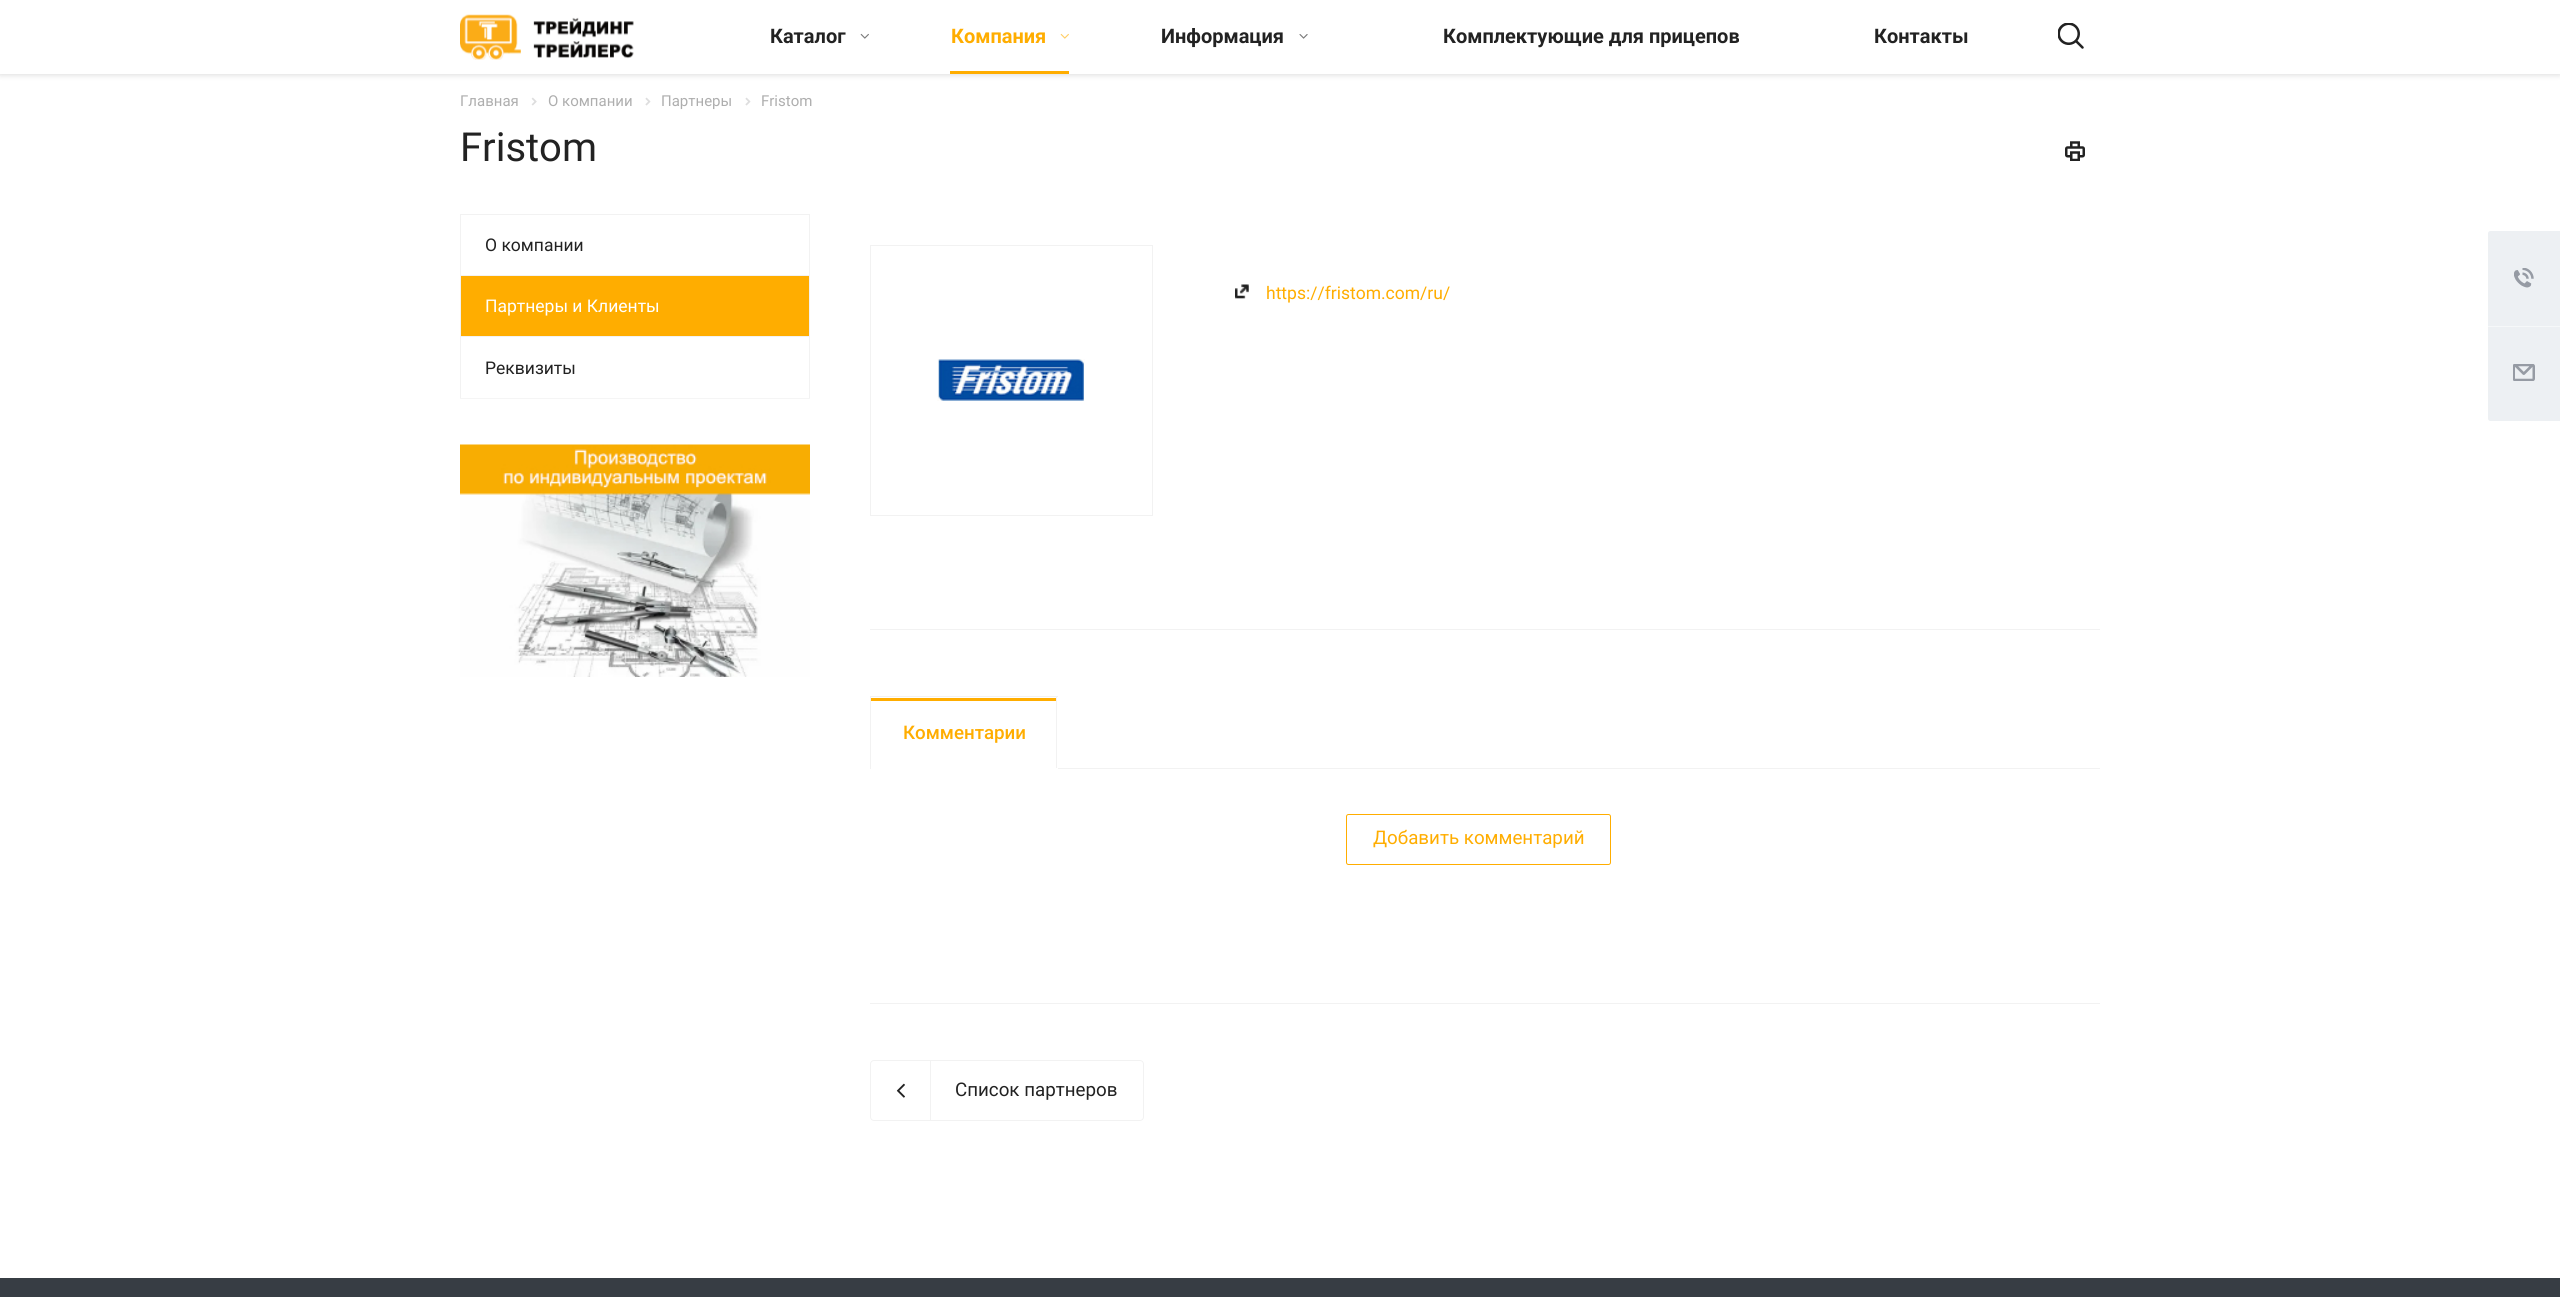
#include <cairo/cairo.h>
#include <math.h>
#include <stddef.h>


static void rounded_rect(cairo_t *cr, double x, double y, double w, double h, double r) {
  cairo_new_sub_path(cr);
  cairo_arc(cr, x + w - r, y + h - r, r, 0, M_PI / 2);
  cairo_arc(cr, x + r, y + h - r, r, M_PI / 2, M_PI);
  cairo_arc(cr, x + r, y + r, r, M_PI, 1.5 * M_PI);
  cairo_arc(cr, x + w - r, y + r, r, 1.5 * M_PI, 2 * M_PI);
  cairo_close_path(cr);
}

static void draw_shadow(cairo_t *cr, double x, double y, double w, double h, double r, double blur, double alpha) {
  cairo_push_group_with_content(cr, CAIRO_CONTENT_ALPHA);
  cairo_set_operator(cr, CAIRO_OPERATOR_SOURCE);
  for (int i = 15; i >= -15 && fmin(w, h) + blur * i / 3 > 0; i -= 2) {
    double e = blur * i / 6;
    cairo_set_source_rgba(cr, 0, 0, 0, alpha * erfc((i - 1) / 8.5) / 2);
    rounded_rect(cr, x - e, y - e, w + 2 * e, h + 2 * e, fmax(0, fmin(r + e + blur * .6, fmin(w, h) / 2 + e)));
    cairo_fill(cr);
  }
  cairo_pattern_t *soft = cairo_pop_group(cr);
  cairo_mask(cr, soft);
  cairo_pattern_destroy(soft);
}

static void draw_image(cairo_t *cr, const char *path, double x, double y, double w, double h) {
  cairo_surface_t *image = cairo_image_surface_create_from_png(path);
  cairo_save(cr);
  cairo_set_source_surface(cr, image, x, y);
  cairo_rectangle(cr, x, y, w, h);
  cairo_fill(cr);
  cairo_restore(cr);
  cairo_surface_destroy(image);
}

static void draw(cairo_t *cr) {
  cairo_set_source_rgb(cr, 1, 1, 1);
  cairo_paint(cr);
  cairo_set_source_rgb(cr, 0, 0, 0);
  draw_shadow(cr, 0, 1, 2560, 74, 0, 3, 0.14);
  cairo_set_source_rgb(cr, 1, 1, 1);
  cairo_rectangle(cr, 0, 0, 2560, 74);
  cairo_fill(cr);
  draw_image(cr, "images/1.png", 460, 14, 180, 46);
  draw_image(cr, "images/2.png", 860, 33, 9, 6);
  draw_image(cr, "images/3.png", 1060, 33, 9, 6);
  cairo_set_source_rgb(cr, 1, 173 / 255.0, 0);
  cairo_rectangle(cr, 950, 71, 119, 3);
  cairo_fill(cr);
  draw_image(cr, "images/4.png", 1299, 34, 9, 5);
  draw_image(cr, "images/5.png", 2058, 23, 26, 26);
  draw_image(cr, "images/6.png", 531, 97, 6, 9);
  draw_image(cr, "images/7.png", 645, 97, 6, 9);
  draw_image(cr, "images/7.png", 745, 97, 6, 9);
  draw_image(cr, "images/8.png", 2065, 141, 20, 20);
  cairo_set_source_rgb(cr, 245 / 255.0, 245 / 255.0, 245 / 255.0);
  cairo_rectangle(cr, 460, 398, 350, 1);
  cairo_fill(cr);
  cairo_set_source_rgb(cr, 242 / 255.0, 242 / 255.0, 242 / 255.0);
  cairo_rectangle(cr, 460, 214, 350, 1);
  cairo_fill(cr);
  cairo_rectangle(cr, 809, 214, 1, 61);
  cairo_fill(cr);
  cairo_rectangle(cr, 460, 214, 1, 61);
  cairo_fill(cr);
  cairo_set_source_rgb(cr, 1, 173 / 255.0, 0);
  cairo_rectangle(cr, 461, 276, 348, 60);
  cairo_fill(cr);
  cairo_set_source_rgb(cr, 242 / 255.0, 242 / 255.0, 242 / 255.0);
  cairo_rectangle(cr, 460, 275, 350, 1);
  cairo_fill(cr);
  cairo_rectangle(cr, 809, 275, 1, 61);
  cairo_fill(cr);
  cairo_rectangle(cr, 460, 275, 1, 61);
  cairo_fill(cr);
  cairo_rectangle(cr, 460, 336, 350, 1);
  cairo_fill(cr);
  cairo_rectangle(cr, 809, 336, 1, 62);
  cairo_fill(cr);
  cairo_rectangle(cr, 460, 336, 1, 62);
  cairo_fill(cr);
  draw_image(cr, "images/9.png", 460, 444, 350, 233);
  cairo_rectangle(cr, 870.5, 245.5, 282, 270);
  cairo_set_line_width(cr, 1);
  cairo_stroke(cr);
  draw_image(cr, "images/10.png", 937, 359, 148, 42);
  draw_image(cr, "images/11.png", 1235, 284, 14, 15);
  cairo_rectangle(cr, 870, 629, 1230, 1);
  cairo_fill(cr);
  cairo_rectangle(cr, 1058, 768, 1042, 1);
  cairo_fill(cr);
  cairo_rectangle(cr, 870, 696, 188, 1);
  cairo_fill(cr);
  cairo_rectangle(cr, 1056, 696, 1, 73);
  cairo_fill(cr);
  cairo_set_source_rgb(cr, 1, 1, 1);
  cairo_rectangle(cr, 1056, 768, 2, 1);
  cairo_fill(cr);
  cairo_set_source_rgb(cr, 242 / 255.0, 242 / 255.0, 242 / 255.0);
  cairo_rectangle(cr, 870, 696, 1, 73);
  cairo_fill(cr);
  cairo_set_source_rgb(cr, 1, 173 / 255.0, 0);
  cairo_rectangle(cr, 871, 698, 185, 3);
  cairo_fill(cr);
  rounded_rect(cr, 1346.5, 814.5, 264, 50, 2);
  cairo_stroke(cr);
  cairo_set_source_rgb(cr, 242 / 255.0, 242 / 255.0, 242 / 255.0);
  cairo_rectangle(cr, 870, 1003, 1230, 1);
  cairo_fill(cr);
  rounded_rect(cr, 870.5, 1060.5, 273, 60, 3.5);
  cairo_stroke(cr);
  draw_image(cr, "images/12.png", 896, 1083, 9, 15);
  cairo_rectangle(cr, 930, 1061, 1, 59);
  cairo_fill(cr);
  cairo_set_source_rgb(cr, 237 / 255.0, 240 / 255.0, 243 / 255.0);
  cairo_new_path(cr);
  cairo_move_to(cr, 2490.5, 231);
  cairo_line_to(cr, 2560, 231);
  cairo_line_to(cr, 2560, 326);
  cairo_line_to(cr, 2488, 326);
  cairo_line_to(cr, 2488, 233.5);
  cairo_curve_to(cr, 2488, 232, 2489, 231, 2490.5, 231);
  cairo_close_path(cr);
  cairo_fill(cr);
  draw_image(cr, "images/13.png", 2514, 268, 20, 20);
  cairo_new_path(cr);
  cairo_move_to(cr, 2488, 326);
  cairo_line_to(cr, 2560, 326);
  cairo_line_to(cr, 2560, 421);
  cairo_line_to(cr, 2490.5, 421);
  cairo_curve_to(cr, 2489, 421, 2488, 420, 2488, 418.5);
  cairo_close_path(cr);
  cairo_fill(cr);
  cairo_set_source_rgb(cr, 246 / 255.0, 248 / 255.0, 249 / 255.0);
  cairo_rectangle(cr, 2488, 326, 72, 1);
  cairo_fill(cr);
  draw_image(cr, "images/14.png", 2513, 364, 22, 17);
  cairo_set_source_rgb(cr, 55 / 255.0, 61 / 255.0, 68 / 255.0);
  cairo_rectangle(cr, 0, 1278, 2560, 19);
  cairo_fill(cr);
  cairo_select_font_face(cr, "Roboto", CAIRO_FONT_SLANT_NORMAL, CAIRO_FONT_WEIGHT_BOLD);
  cairo_set_font_size(cr, 20);
  cairo_set_source_rgb(cr, 34 / 255.0, 34 / 255.0, 34 / 255.0);
  cairo_move_to(cr, 770, 43);
  cairo_show_text(cr, "Каталог");
  cairo_set_source_rgb(cr, 1, 173 / 255.0, 0);
  cairo_move_to(cr, 951, 43);
  cairo_show_text(cr, "Компания");
  cairo_set_source_rgb(cr, 34 / 255.0, 34 / 255.0, 34 / 255.0);
  cairo_move_to(cr, 1161, 43);
  cairo_show_text(cr, "Информация");
  cairo_move_to(cr, 1443, 43);
  cairo_show_text(cr, "Комплектующие для прицепов");
  cairo_move_to(cr, 1874, 43);
  cairo_show_text(cr, "Контакты");
  cairo_select_font_face(cr, "Roboto", CAIRO_FONT_SLANT_NORMAL, CAIRO_FONT_WEIGHT_NORMAL);
  cairo_set_font_size(cr, 15);
  cairo_set_source_rgb(cr, 174 / 255.0, 174 / 255.0, 174 / 255.0);
  cairo_move_to(cr, 460, 106);
  cairo_show_text(cr, "Главная");
  cairo_move_to(cr, 548, 106);
  cairo_show_text(cr, "О компании");
  cairo_move_to(cr, 661, 106);
  cairo_show_text(cr, "Партнеры");
  cairo_move_to(cr, 761, 106);
  cairo_show_text(cr, "Fristom");
  cairo_set_font_size(cr, 40);
  cairo_set_source_rgb(cr, 34 / 255.0, 34 / 255.0, 34 / 255.0);
  cairo_move_to(cr, 460, 161);
  cairo_show_text(cr, "Fristom");
  cairo_set_font_size(cr, 17.5);
  cairo_move_to(cr, 485, 251);
  cairo_show_text(cr, "О компании");
  cairo_set_source_rgb(cr, 1, 1, 1);
  cairo_move_to(cr, 485, 312);
  cairo_show_text(cr, "Партнеры и Клиенты");
  cairo_set_source_rgb(cr, 34 / 255.0, 34 / 255.0, 34 / 255.0);
  cairo_move_to(cr, 485, 374);
  cairo_show_text(cr, "Реквизиты");
  cairo_set_source_rgb(cr, 1, 173 / 255.0, 0);
  cairo_move_to(cr, 1266, 299);
  cairo_show_text(cr, "https://fristom.com/ru/");
  cairo_select_font_face(cr, "Roboto Medium", CAIRO_FONT_SLANT_NORMAL, CAIRO_FONT_WEIGHT_NORMAL);
  cairo_set_font_size(cr, 18.75);
  cairo_move_to(cr, 903, 739);
  cairo_show_text(cr, "Комментарии");
  cairo_select_font_face(cr, "Roboto", CAIRO_FONT_SLANT_NORMAL, CAIRO_FONT_WEIGHT_NORMAL);
  cairo_move_to(cr, 1373, 844);
  cairo_show_text(cr, "Добавить комментарий");
  cairo_set_source_rgb(cr, 34 / 255.0, 34 / 255.0, 34 / 255.0);
  cairo_move_to(cr, 955, 1096);
  cairo_show_text(cr, "Список партнеров");
}

int main(void) {
  cairo_surface_t *surface = cairo_image_surface_create(CAIRO_FORMAT_RGB24, 2560, 1297);
  cairo_t *cr = cairo_create(surface);
  cairo_font_options_t *options = cairo_font_options_create();
  cairo_font_options_set_hint_metrics(options, CAIRO_HINT_METRICS_OFF);
  cairo_font_options_set_hint_style(options, CAIRO_HINT_STYLE_NONE);
  cairo_set_font_options(cr, options);
  cairo_set_miter_limit(cr, 4);
  draw(cr);
  cairo_surface_write_to_png(surface, "out.png");
  cairo_font_options_destroy(options);
  cairo_destroy(cr);
  cairo_surface_destroy(surface);
  return 0;
}
